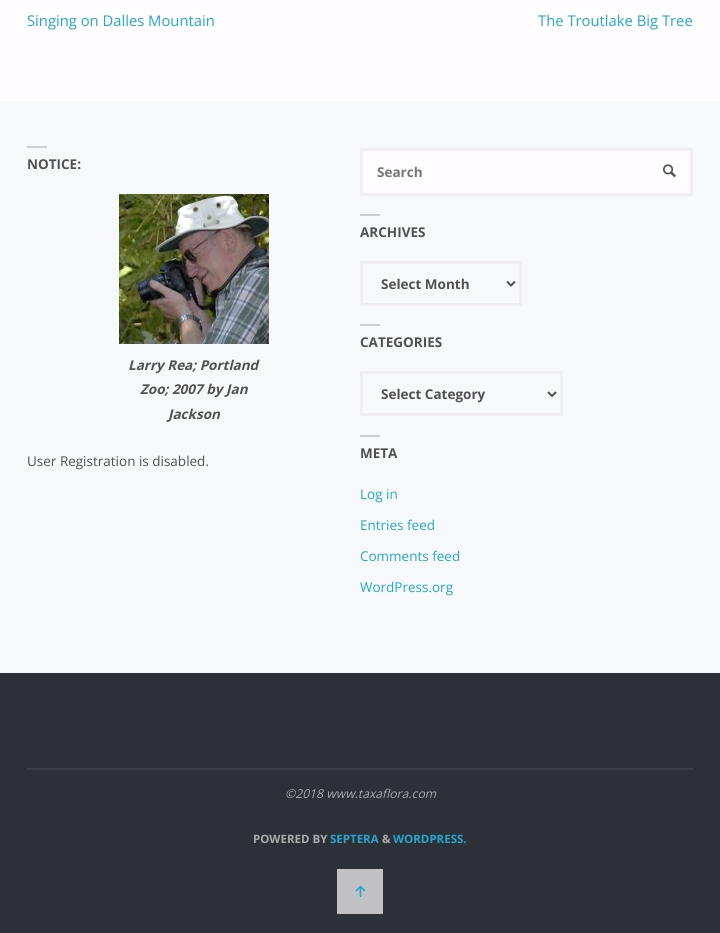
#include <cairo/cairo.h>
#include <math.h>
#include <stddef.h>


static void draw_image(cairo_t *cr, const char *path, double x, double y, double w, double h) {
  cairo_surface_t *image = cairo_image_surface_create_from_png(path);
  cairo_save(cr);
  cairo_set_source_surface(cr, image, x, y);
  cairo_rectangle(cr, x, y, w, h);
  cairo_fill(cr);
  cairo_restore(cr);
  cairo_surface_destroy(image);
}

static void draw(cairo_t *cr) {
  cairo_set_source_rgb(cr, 1, 253 / 255.0, 1);
  cairo_paint(cr);
  cairo_set_source_rgb(cr, 247 / 255.0, 248 / 255.0, 249 / 255.0);
  cairo_rectangle(cr, 0, 101, 720, 572);
  cairo_fill(cr);
  cairo_set_source_rgb(cr, 206 / 255.0, 206 / 255.0, 207 / 255.0);
  cairo_rectangle(cr, 27, 146, 20, 2);
  cairo_fill(cr);
  draw_image(cr, "images/1.png", 119, 194, 150, 150);
  cairo_set_source_rgb(cr, 1, 253 / 255.0, 1);
  cairo_rectangle(cr, 361.5, 149.5, 330, 45);
  cairo_fill_preserve(cr);
  cairo_set_source_rgb(cr, 240 / 255.0, 238 / 255.0, 240 / 255.0);
  cairo_set_line_width(cr, 3);
  cairo_stroke(cr);
  draw_image(cr, "images/2.png", 663, 164, 13, 14);
  cairo_set_source_rgb(cr, 206 / 255.0, 206 / 255.0, 207 / 255.0);
  cairo_rectangle(cr, 360, 214, 20, 2);
  cairo_fill(cr);
  cairo_rectangle(cr, 361.5, 262.5, 159, 42);
  cairo_set_source_rgb(cr, 240 / 255.0, 238 / 255.0, 240 / 255.0);
  cairo_stroke(cr);
  cairo_new_path(cr);
  cairo_move_to(cr, 507, 281.5);
  cairo_line_to(cr, 511, 285.5);
  cairo_line_to(cr, 515, 281.5);
  cairo_set_source_rgb(cr, 81 / 255.0, 81 / 255.0, 81 / 255.0);
  cairo_set_line_width(cr, 2);
  cairo_stroke(cr);
  cairo_set_source_rgb(cr, 206 / 255.0, 206 / 255.0, 207 / 255.0);
  cairo_rectangle(cr, 360, 324, 20, 2);
  cairo_fill(cr);
  cairo_rectangle(cr, 361.5, 372.5, 200, 42);
  cairo_set_source_rgb(cr, 240 / 255.0, 238 / 255.0, 240 / 255.0);
  cairo_set_line_width(cr, 3);
  cairo_stroke(cr);
  cairo_new_path(cr);
  cairo_move_to(cr, 548, 392);
  cairo_line_to(cr, 552, 396);
  cairo_line_to(cr, 556, 392);
  cairo_set_source_rgb(cr, 81 / 255.0, 81 / 255.0, 81 / 255.0);
  cairo_set_line_width(cr, 2);
  cairo_stroke(cr);
  cairo_set_source_rgb(cr, 206 / 255.0, 206 / 255.0, 207 / 255.0);
  cairo_rectangle(cr, 360, 435, 20, 2);
  cairo_fill(cr);
  cairo_set_source_rgb(cr, 46 / 255.0, 48 / 255.0, 56 / 255.0);
  cairo_rectangle(cr, 0, 673, 720, 260);
  cairo_fill(cr);
  cairo_set_source_rgb(cr, 61 / 255.0, 63 / 255.0, 71 / 255.0);
  cairo_rectangle(cr, 27, 768, 666, 2);
  cairo_fill(cr);
  cairo_set_source_rgb(cr, 193 / 255.0, 192 / 255.0, 195 / 255.0);
  cairo_rectangle(cr, 337, 869, 46, 45);
  cairo_fill(cr);
  draw_image(cr, "images/3.png", 355, 885, 11, 12);
  cairo_select_font_face(cr, "Open Sans", CAIRO_FONT_SLANT_NORMAL, CAIRO_FONT_WEIGHT_NORMAL);
  cairo_set_font_size(cr, 14.8);
  cairo_set_source_rgb(cr, 36 / 255.0, 167 / 255.0, 207 / 255.0);
  cairo_move_to(cr, 27, 26);
  cairo_show_text(cr, "Singing on Dalles Mountain");
  cairo_move_to(cr, 538, 26);
  cairo_show_text(cr, "The Troutlake Big Tree");
  cairo_select_font_face(cr, "Open Sans", CAIRO_FONT_SLANT_NORMAL, CAIRO_FONT_WEIGHT_BOLD);
  cairo_set_font_size(cr, 13.5);
  cairo_set_source_rgb(cr, 81 / 255.0, 81 / 255.0, 81 / 255.0);
  cairo_move_to(cr, 27, 169);
  cairo_show_text(cr, "NOTICE:");
  cairo_select_font_face(cr, "Open Sans", CAIRO_FONT_SLANT_ITALIC, CAIRO_FONT_WEIGHT_BOLD);
  cairo_move_to(cr, 128, 370);
  cairo_show_text(cr, "Larry Rea; Portland");
  cairo_move_to(cr, 140, 394);
  cairo_show_text(cr, "Zoo; 2007 by Jan");
  cairo_move_to(cr, 168, 419);
  cairo_show_text(cr, "Jackson");
  cairo_select_font_face(cr, "Open Sans", CAIRO_FONT_SLANT_NORMAL, CAIRO_FONT_WEIGHT_NORMAL);
  cairo_move_to(cr, 27, 466);
  cairo_show_text(cr, "User Registration is disabled.");
  cairo_select_font_face(cr, "Open Sans", CAIRO_FONT_SLANT_NORMAL, CAIRO_FONT_WEIGHT_BOLD);
  cairo_set_source_rgb(cr, 117 / 255.0, 117 / 255.0, 117 / 255.0);
  cairo_move_to(cr, 377, 177);
  cairo_show_text(cr, "Search");
  cairo_set_source_rgb(cr, 81 / 255.0, 81 / 255.0, 81 / 255.0);
  cairo_move_to(cr, 360, 237);
  cairo_show_text(cr, "ARCHIVES");
  cairo_move_to(cr, 381, 289);
  cairo_show_text(cr, "Select Month");
  cairo_move_to(cr, 360, 347);
  cairo_show_text(cr, "CATEGORIES");
  cairo_move_to(cr, 381, 399);
  cairo_show_text(cr, "Select Category");
  cairo_move_to(cr, 360, 458);
  cairo_show_text(cr, "META");
  cairo_select_font_face(cr, "Open Sans", CAIRO_FONT_SLANT_NORMAL, CAIRO_FONT_WEIGHT_NORMAL);
  cairo_set_source_rgb(cr, 36 / 255.0, 167 / 255.0, 207 / 255.0);
  cairo_move_to(cr, 360, 499);
  cairo_show_text(cr, "Log in");
  cairo_move_to(cr, 360, 530);
  cairo_show_text(cr, "Entries feed");
  cairo_move_to(cr, 360, 561);
  cairo_show_text(cr, "Comments feed");
  cairo_move_to(cr, 360, 592);
  cairo_show_text(cr, "WordPress.org");
  cairo_select_font_face(cr, "Open Sans", CAIRO_FONT_SLANT_ITALIC, CAIRO_FONT_WEIGHT_NORMAL);
  cairo_set_font_size(cr, 12.2);
  cairo_set_source_rgb(cr, 170 / 255.0, 170 / 255.0, 170 / 255.0);
  cairo_move_to(cr, 285, 798);
  cairo_show_text(cr, "©2018 www.taxaflora.com");
  cairo_select_font_face(cr, "Open Sans", CAIRO_FONT_SLANT_NORMAL, CAIRO_FONT_WEIGHT_BOLD);
  cairo_set_font_size(cr, 11.5);
  cairo_move_to(cr, 253, 843);
  cairo_show_text(cr, "POWERED BY");
  cairo_set_source_rgb(cr, 36 / 255.0, 167 / 255.0, 207 / 255.0);
  cairo_move_to(cr, 330, 843);
  cairo_show_text(cr, "SEPTERA");
  cairo_set_source_rgb(cr, 170 / 255.0, 170 / 255.0, 170 / 255.0);
  cairo_move_to(cr, 382, 843);
  cairo_show_text(cr, "&");
  cairo_set_source_rgb(cr, 36 / 255.0, 167 / 255.0, 207 / 255.0);
  cairo_move_to(cr, 393, 843);
  cairo_show_text(cr, "WORDPRESS.");
}

int main(void) {
  cairo_surface_t *surface = cairo_image_surface_create(CAIRO_FORMAT_RGB24, 720, 933);
  cairo_t *cr = cairo_create(surface);
  cairo_font_options_t *options = cairo_font_options_create();
  cairo_font_options_set_hint_metrics(options, CAIRO_HINT_METRICS_OFF);
  cairo_font_options_set_hint_style(options, CAIRO_HINT_STYLE_NONE);
  cairo_set_font_options(cr, options);
  cairo_set_miter_limit(cr, 4);
  draw(cr);
  cairo_surface_write_to_png(surface, "out.png");
  cairo_font_options_destroy(options);
  cairo_destroy(cr);
  cairo_surface_destroy(surface);
  return 0;
}
